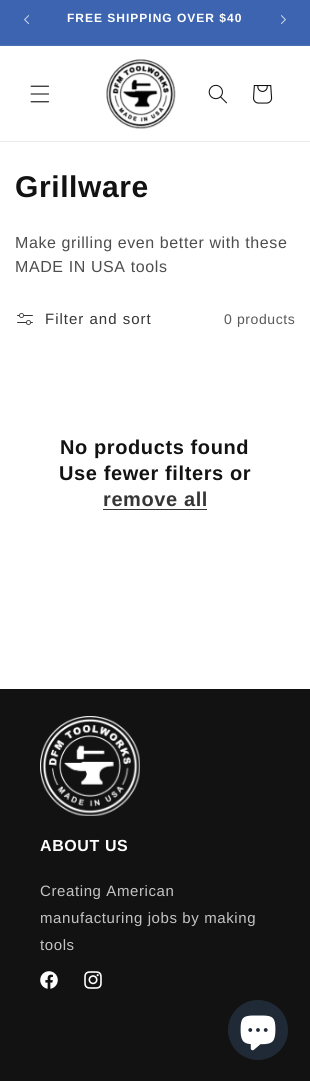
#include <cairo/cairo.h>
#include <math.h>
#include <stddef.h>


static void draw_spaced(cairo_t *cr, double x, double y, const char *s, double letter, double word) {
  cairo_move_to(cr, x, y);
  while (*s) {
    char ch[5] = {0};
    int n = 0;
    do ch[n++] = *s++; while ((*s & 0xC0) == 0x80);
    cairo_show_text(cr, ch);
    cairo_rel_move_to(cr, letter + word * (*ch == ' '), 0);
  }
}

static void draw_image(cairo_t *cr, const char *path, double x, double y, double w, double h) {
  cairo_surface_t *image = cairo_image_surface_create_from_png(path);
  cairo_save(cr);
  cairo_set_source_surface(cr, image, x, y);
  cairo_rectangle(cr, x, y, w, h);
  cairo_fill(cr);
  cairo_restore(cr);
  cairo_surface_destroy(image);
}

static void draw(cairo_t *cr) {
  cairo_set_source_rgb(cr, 1, 1, 1);
  cairo_paint(cr);
  cairo_set_source_rgb(cr, 60 / 255.0, 100 / 255.0, 177 / 255.0);
  cairo_rectangle(cr, 0, 0, 310, 45);
  cairo_fill(cr);
  cairo_set_source_rgb(cr, 76 / 255.0, 112 / 255.0, 183 / 255.0);
  cairo_rectangle(cr, 0, 45, 310, 1);
  cairo_fill(cr);
  draw_image(cr, "images/1.png", 24, 15, 5, 9);
  draw_image(cr, "images/2.png", 281, 15, 5, 9);
  cairo_set_source_rgb(cr, 236 / 255.0, 236 / 255.0, 236 / 255.0);
  cairo_rectangle(cr, 0, 141, 310, 1);
  cairo_fill(cr);
  draw_image(cr, "images/3.png", 30, 85, 20, 18);
  draw_image(cr, "images/4.png", 106, 59, 70, 70);
  draw_image(cr, "images/5.png", 208, 84, 19, 20);
  draw_image(cr, "images/6.png", 253, 85, 20, 19);
  draw_image(cr, "images/7.png", 17, 313, 16, 12);
  cairo_set_source_rgb(cr, 54 / 255.0, 54 / 255.0, 54 / 255.0);
  cairo_rectangle(cr, 103, 509, 104, 1);
  cairo_fill(cr);
  cairo_set_source_rgb(cr, 18 / 255.0, 18 / 255.0, 18 / 255.0);
  cairo_rectangle(cr, 0, 689, 310, 392);
  cairo_fill(cr);
  draw_image(cr, "images/8.png", 40, 716, 100, 100);
  draw_image(cr, "images/9.png", 40, 971, 18, 18);
  draw_image(cr, "images/10.png", 84, 971, 18, 18);
  cairo_set_source_rgb(cr, 32 / 255.0, 42 / 255.0, 54 / 255.0);
  cairo_arc(cr, 258, 1030, 30, 0, 2 * M_PI);
  cairo_fill(cr);
  draw_image(cr, "images/11.png", 240, 1015, 36, 36);
  cairo_select_font_face(cr, "Liberation Sans", CAIRO_FONT_SLANT_NORMAL, CAIRO_FONT_WEIGHT_BOLD);
  cairo_set_font_size(cr, 12);
  cairo_set_source_rgb(cr, 1, 1, 1);
  draw_spaced(cr, 67, 22, "FREE SHIPPING OVER $40", 1, 0);
  cairo_set_font_size(cr, 30);
  cairo_set_source_rgb(cr, 18 / 255.0, 18 / 255.0, 18 / 255.0);
  draw_spaced(cr, 15, 197, "Grillware", 0.6, 0);
  cairo_select_font_face(cr, "Liberation Sans", CAIRO_FONT_SLANT_NORMAL, CAIRO_FONT_WEIGHT_NORMAL);
  cairo_set_font_size(cr, 16);
  cairo_set_source_rgb(cr, 77 / 255.0, 77 / 255.0, 77 / 255.0);
  draw_spaced(cr, 15, 248, "Make grilling even better with these", 0.6, 0);
  draw_spaced(cr, 15, 272, "MADE IN USA tools", 0.6, 0);
  cairo_set_font_size(cr, 15);
  cairo_set_source_rgb(cr, 54 / 255.0, 54 / 255.0, 54 / 255.0);
  draw_spaced(cr, 45, 324, "Filter and sort", 1, 0);
  cairo_set_font_size(cr, 14);
  cairo_set_source_rgb(cr, 89 / 255.0, 89 / 255.0, 89 / 255.0);
  draw_spaced(cr, 224, 324, "0 products", 0.6, 0);
  cairo_select_font_face(cr, "Liberation Sans", CAIRO_FONT_SLANT_NORMAL, CAIRO_FONT_WEIGHT_BOLD);
  cairo_set_font_size(cr, 20);
  cairo_set_source_rgb(cr, 18 / 255.0, 18 / 255.0, 18 / 255.0);
  draw_spaced(cr, 60, 454, "No products found", 0.6, 0);
  draw_spaced(cr, 59, 480, "Use fewer filters or", 0.6, 0);
  cairo_set_source_rgb(cr, 54 / 255.0, 54 / 255.0, 54 / 255.0);
  draw_spaced(cr, 103, 506, "remove all", 0.6, 0);
  cairo_set_font_size(cr, 16);
  cairo_set_source_rgb(cr, 1, 1, 1);
  draw_spaced(cr, 40, 851, "ABOUT US", 0.6, 0);
  cairo_select_font_face(cr, "Liberation Sans", CAIRO_FONT_SLANT_NORMAL, CAIRO_FONT_WEIGHT_NORMAL);
  cairo_set_font_size(cr, 15);
  cairo_set_source_rgb(cr, 196 / 255.0, 196 / 255.0, 196 / 255.0);
  draw_spaced(cr, 40, 896, "Creating American", 0.6, 0);
  draw_spaced(cr, 40, 923, "manufacturing jobs by making", 0.6, 0);
  draw_spaced(cr, 40, 950, "tools", 0.6, 0);
}

int main(void) {
  cairo_surface_t *surface = cairo_image_surface_create(CAIRO_FORMAT_RGB24, 310, 1081);
  cairo_t *cr = cairo_create(surface);
  cairo_font_options_t *options = cairo_font_options_create();
  cairo_font_options_set_hint_metrics(options, CAIRO_HINT_METRICS_OFF);
  cairo_font_options_set_hint_style(options, CAIRO_HINT_STYLE_NONE);
  cairo_set_font_options(cr, options);
  cairo_set_miter_limit(cr, 4);
  draw(cr);
  cairo_surface_write_to_png(surface, "out.png");
  cairo_font_options_destroy(options);
  cairo_destroy(cr);
  cairo_surface_destroy(surface);
  return 0;
}
